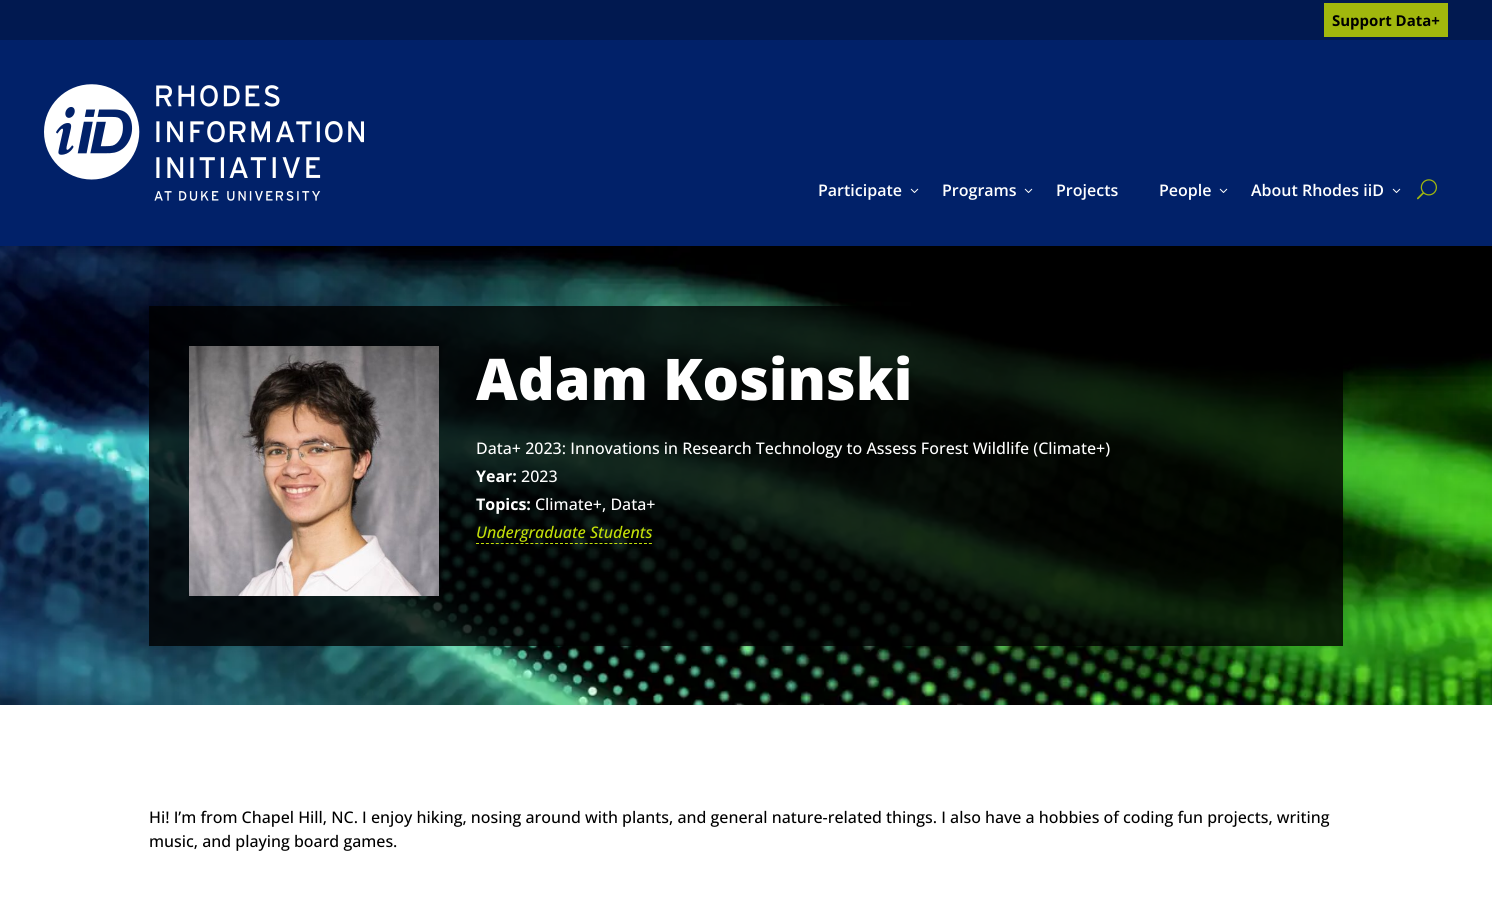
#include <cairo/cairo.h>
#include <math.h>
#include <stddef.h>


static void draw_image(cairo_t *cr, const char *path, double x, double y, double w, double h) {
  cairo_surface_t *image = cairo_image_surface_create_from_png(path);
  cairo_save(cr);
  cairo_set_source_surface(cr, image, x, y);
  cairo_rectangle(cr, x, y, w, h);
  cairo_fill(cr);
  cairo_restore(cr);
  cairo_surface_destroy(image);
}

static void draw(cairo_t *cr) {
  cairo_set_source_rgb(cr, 1, 1, 1);
  cairo_paint(cr);
  cairo_set_source_rgb(cr, 1 / 255.0, 33 / 255.0, 105 / 255.0);
  cairo_rectangle(cr, 0, 40, 1492, 206);
  cairo_fill(cr);
  cairo_set_source_rgb(cr, 1 / 255.0, 25 / 255.0, 80 / 255.0);
  cairo_rectangle(cr, 0, 0, 1492, 40);
  cairo_fill(cr);
  cairo_set_source_rgb(cr, 161 / 255.0, 183 / 255.0, 13 / 255.0);
  cairo_rectangle(cr, 1324, 3, 124, 34);
  cairo_fill(cr);
  draw_image(cr, "images/1.png", 44, 84, 320, 117);
  draw_image(cr, "images/2.png", 910, 188, 9, 5);
  draw_image(cr, "images/2.png", 1024, 188, 9, 5);
  draw_image(cr, "images/2.png", 1219, 188, 9, 5);
  draw_image(cr, "images/2.png", 1392, 188, 9, 5);
  draw_image(cr, "images/3.png", 1417, 179, 20, 21);
  draw_image(cr, "images/4.png", 0, 246, 1492, 459);
  cairo_set_source_rgba(cr, 0, 0, 0, 0.8);
  cairo_rectangle(cr, 149, 306, 1194, 340);
  cairo_fill(cr);
  draw_image(cr, "images/5.png", 189, 346, 250, 250);
  cairo_new_path(cr);
  cairo_move_to(cr, 476, 543.5);
  cairo_line_to(cr, 652, 543.5);
  cairo_set_source_rgb(cr, 196 / 255.0, 224 / 255.0, 9 / 255.0);
  cairo_set_line_width(cr, 1);
  cairo_set_dash(cr, (double[]){3, 1.94}, 2, 0);
  cairo_stroke(cr);
  cairo_select_font_face(cr, "Open Sans", CAIRO_FONT_SLANT_NORMAL, CAIRO_FONT_WEIGHT_BOLD);
  cairo_set_font_size(cr, 15);
  cairo_set_source_rgb(cr, 0, 0, 0);
  cairo_move_to(cr, 1332, 26);
  cairo_show_text(cr, "Support Data+");
  cairo_select_font_face(cr, "Open Sans SemiBold", CAIRO_FONT_SLANT_NORMAL, CAIRO_FONT_WEIGHT_NORMAL);
  cairo_set_font_size(cr, 16);
  cairo_set_source_rgb(cr, 1, 1, 1);
  cairo_move_to(cr, 818, 196);
  cairo_show_text(cr, "Participate");
  cairo_move_to(cr, 942, 196);
  cairo_show_text(cr, "Programs");
  cairo_move_to(cr, 1056, 196);
  cairo_show_text(cr, "Projects");
  cairo_move_to(cr, 1159, 196);
  cairo_show_text(cr, "People");
  cairo_move_to(cr, 1251, 196);
  cairo_show_text(cr, "About Rhodes iiD");
  cairo_select_font_face(cr, "Open Sans ExtraBold", CAIRO_FONT_SLANT_NORMAL, CAIRO_FONT_WEIGHT_NORMAL);
  cairo_set_font_size(cr, 57.5);
  cairo_move_to(cr, 476, 400);
  cairo_show_text(cr, "Adam Kosinski");
  cairo_select_font_face(cr, "Open Sans Medium", CAIRO_FONT_SLANT_NORMAL, CAIRO_FONT_WEIGHT_NORMAL);
  cairo_set_font_size(cr, 16);
  cairo_move_to(cr, 476, 454);
  cairo_show_text(cr, "Data+ 2023: Innovations in Research Technology to Assess Forest Wildlife (Climate+)");
  cairo_select_font_face(cr, "Open Sans", CAIRO_FONT_SLANT_NORMAL, CAIRO_FONT_WEIGHT_BOLD);
  cairo_move_to(cr, 476, 482);
  cairo_show_text(cr, "Year:");
  cairo_select_font_face(cr, "Open Sans Medium", CAIRO_FONT_SLANT_NORMAL, CAIRO_FONT_WEIGHT_NORMAL);
  cairo_move_to(cr, 521, 482);
  cairo_show_text(cr, "2023");
  cairo_select_font_face(cr, "Open Sans", CAIRO_FONT_SLANT_NORMAL, CAIRO_FONT_WEIGHT_BOLD);
  cairo_move_to(cr, 476, 510);
  cairo_show_text(cr, "Topics:");
  cairo_select_font_face(cr, "Open Sans Medium", CAIRO_FONT_SLANT_NORMAL, CAIRO_FONT_WEIGHT_NORMAL);
  cairo_move_to(cr, 535, 510);
  cairo_show_text(cr, "Climate+, Data+");
  cairo_select_font_face(cr, "Open Sans Medium", CAIRO_FONT_SLANT_ITALIC, CAIRO_FONT_WEIGHT_NORMAL);
  cairo_set_source_rgb(cr, 196 / 255.0, 224 / 255.0, 9 / 255.0);
  cairo_move_to(cr, 476, 538);
  cairo_show_text(cr, "Undergraduate Students");
  cairo_select_font_face(cr, "Open Sans Medium", CAIRO_FONT_SLANT_NORMAL, CAIRO_FONT_WEIGHT_NORMAL);
  cairo_set_source_rgb(cr, 0, 0, 0);
  cairo_move_to(cr, 149, 823);
  cairo_show_text(cr, "Hi! I’m from Chapel Hill, NC. I enjoy hiking, nosing around with plants, and general nature-related things. I also have a hobbies of coding fun projects, writing");
  cairo_move_to(cr, 149, 847);
  cairo_show_text(cr, "music, and playing board games.");
}

int main(void) {
  cairo_surface_t *surface = cairo_image_surface_create(CAIRO_FORMAT_RGB24, 1492, 910);
  cairo_t *cr = cairo_create(surface);
  cairo_font_options_t *options = cairo_font_options_create();
  cairo_font_options_set_hint_metrics(options, CAIRO_HINT_METRICS_OFF);
  cairo_font_options_set_hint_style(options, CAIRO_HINT_STYLE_NONE);
  cairo_set_font_options(cr, options);
  cairo_set_miter_limit(cr, 4);
  draw(cr);
  cairo_surface_write_to_png(surface, "out.png");
  cairo_font_options_destroy(options);
  cairo_destroy(cr);
  cairo_surface_destroy(surface);
  return 0;
}
